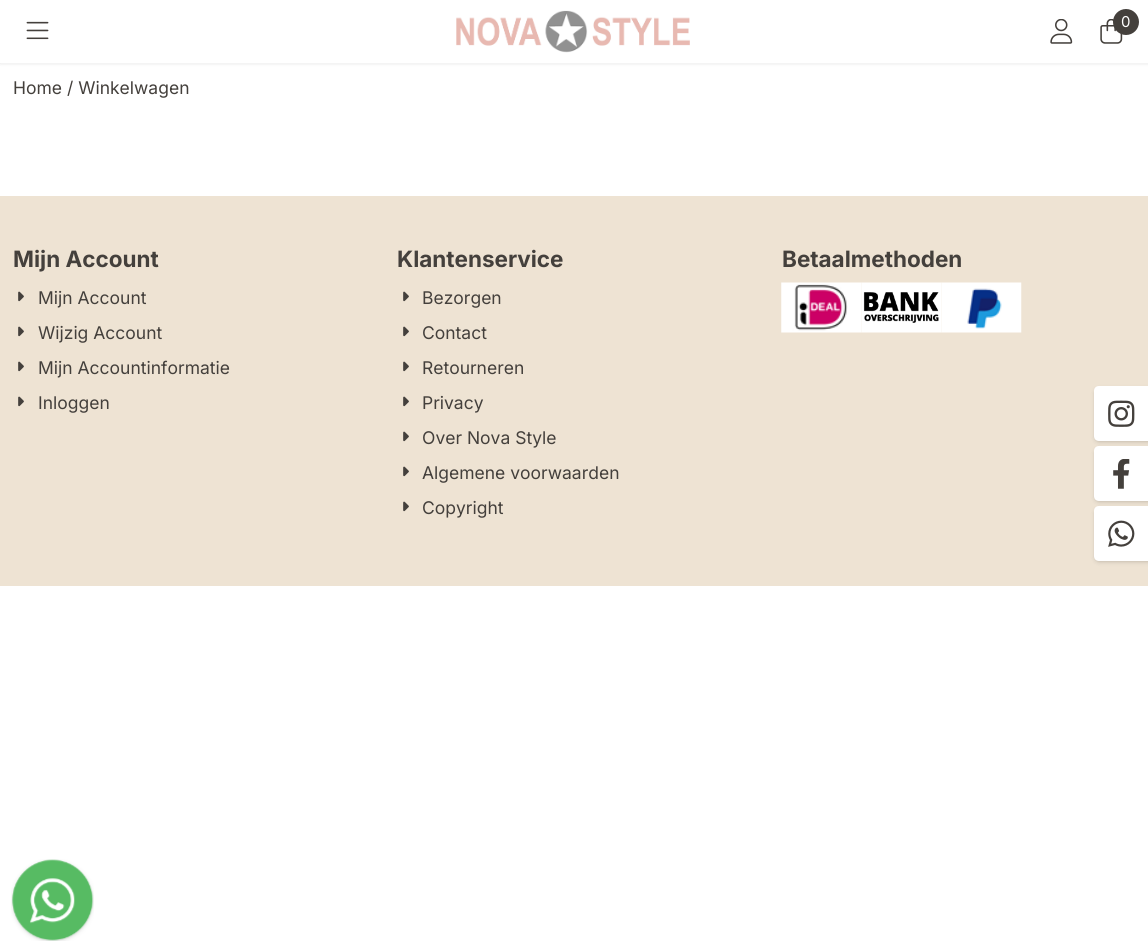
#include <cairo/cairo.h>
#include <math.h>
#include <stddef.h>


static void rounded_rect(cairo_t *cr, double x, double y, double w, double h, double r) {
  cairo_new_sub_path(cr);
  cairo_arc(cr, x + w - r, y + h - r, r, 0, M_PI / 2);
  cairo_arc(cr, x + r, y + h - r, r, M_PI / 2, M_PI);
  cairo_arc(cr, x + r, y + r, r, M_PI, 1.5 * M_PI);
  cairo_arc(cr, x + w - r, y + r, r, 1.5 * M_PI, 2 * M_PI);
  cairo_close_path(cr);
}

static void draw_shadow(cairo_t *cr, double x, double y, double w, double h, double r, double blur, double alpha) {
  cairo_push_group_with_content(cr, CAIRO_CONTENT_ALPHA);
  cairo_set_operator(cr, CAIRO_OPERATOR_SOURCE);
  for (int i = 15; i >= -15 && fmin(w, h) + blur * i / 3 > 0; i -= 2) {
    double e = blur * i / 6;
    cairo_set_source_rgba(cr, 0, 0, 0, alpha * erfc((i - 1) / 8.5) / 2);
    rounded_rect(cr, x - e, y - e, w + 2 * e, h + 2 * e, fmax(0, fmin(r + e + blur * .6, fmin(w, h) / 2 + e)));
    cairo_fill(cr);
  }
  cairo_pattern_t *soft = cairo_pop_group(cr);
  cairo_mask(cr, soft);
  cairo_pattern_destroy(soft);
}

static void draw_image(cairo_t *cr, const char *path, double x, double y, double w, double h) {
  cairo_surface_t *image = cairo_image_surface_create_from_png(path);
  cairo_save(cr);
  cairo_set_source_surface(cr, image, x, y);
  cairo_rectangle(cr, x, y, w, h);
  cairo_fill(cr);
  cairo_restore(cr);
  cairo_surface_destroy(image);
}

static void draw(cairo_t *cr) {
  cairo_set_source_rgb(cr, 1, 1, 1);
  cairo_paint(cr);
  cairo_set_source_rgb(cr, 0, 0, 0);
  draw_shadow(cr, 0, 1, 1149, 64, 0, 1, 0.05);
  cairo_set_source_rgb(cr, 1, 1, 1);
  cairo_rectangle(cr, 0, 0, 1148, 63);
  cairo_fill(cr);
  cairo_set_source_rgb(cr, 242 / 255.0, 242 / 255.0, 242 / 255.0);
  cairo_rectangle(cr, 0, 63, 1, 1);
  cairo_fill(cr);
  draw_image(cr, "images/1.png", 26, 21, 23, 19);
  draw_image(cr, "images/2.png", 456, 10, 234, 43);
  draw_image(cr, "images/3.png", 1050, 19, 23, 25);
  draw_image(cr, "images/4.png", 1100, 19, 23, 25);
  cairo_set_source_rgb(cr, 68 / 255.0, 64 / 255.0, 60 / 255.0);
  cairo_arc(cr, 1126, 22, 13, 0, 2 * M_PI);
  cairo_fill(cr);
  cairo_set_source_rgb(cr, 238 / 255.0, 227 / 255.0, 211 / 255.0);
  cairo_rectangle(cr, 0, 196, 1148, 390);
  cairo_fill(cr);
  draw_image(cr, "images/5.png", 18, 291, 6, 11);
  draw_image(cr, "images/5.png", 18, 326, 6, 11);
  draw_image(cr, "images/5.png", 18, 361, 6, 11);
  draw_image(cr, "images/5.png", 18, 396, 6, 11);
  draw_image(cr, "images/5.png", 403, 291, 6, 11);
  draw_image(cr, "images/5.png", 403, 326, 6, 11);
  draw_image(cr, "images/5.png", 403, 361, 6, 11);
  draw_image(cr, "images/5.png", 403, 396, 6, 11);
  draw_image(cr, "images/5.png", 403, 431, 6, 11);
  draw_image(cr, "images/5.png", 403, 466, 6, 11);
  draw_image(cr, "images/5.png", 403, 501, 6, 11);
  draw_image(cr, "images/6.png", 781, 282, 81, 51);
  draw_image(cr, "images/7.png", 861, 282, 81, 51);
  draw_image(cr, "images/8.png", 941, 282, 81, 51);
  cairo_set_source_rgb(cr, 0, 0, 0);
  draw_shadow(cr, 1095, 389, 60, 52, 4, 1, 0.1);
  draw_shadow(cr, 1094, 388, 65, 55, 5, 2, 0.1);
  cairo_set_source_rgb(cr, 1, 1, 1);
  cairo_new_path(cr);
  cairo_move_to(cr, 1099, 386);
  cairo_line_to(cr, 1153, 386);
  cairo_line_to(cr, 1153, 441);
  cairo_line_to(cr, 1099, 441);
  cairo_curve_to(cr, 1096, 441, 1094, 439, 1094, 436);
  cairo_line_to(cr, 1094, 391);
  cairo_curve_to(cr, 1094, 388, 1096, 386, 1099, 386);
  cairo_close_path(cr);
  cairo_fill(cr);
  draw_image(cr, "images/9.png", 1108, 400, 27, 27);
  cairo_set_source_rgb(cr, 0, 0, 0);
  draw_shadow(cr, 1095, 449, 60, 52, 4, 1, 0.1);
  draw_shadow(cr, 1094, 448, 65, 55, 5, 2, 0.1);
  cairo_set_source_rgb(cr, 1, 1, 1);
  cairo_new_path(cr);
  cairo_move_to(cr, 1099, 446);
  cairo_line_to(cr, 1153, 446);
  cairo_line_to(cr, 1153, 501);
  cairo_line_to(cr, 1099, 501);
  cairo_curve_to(cr, 1096, 501, 1094, 499, 1094, 496);
  cairo_line_to(cr, 1094, 451);
  cairo_curve_to(cr, 1094, 448, 1096, 446, 1099, 446);
  cairo_close_path(cr);
  cairo_fill(cr);
  draw_image(cr, "images/10.png", 1113, 459, 17, 30);
  cairo_set_source_rgb(cr, 0, 0, 0);
  draw_shadow(cr, 1095, 509, 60, 52, 4, 1, 0.1);
  draw_shadow(cr, 1094, 508, 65, 55, 5, 2, 0.1);
  cairo_set_source_rgb(cr, 1, 1, 1);
  cairo_new_path(cr);
  cairo_move_to(cr, 1099, 506);
  cairo_line_to(cr, 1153, 506);
  cairo_line_to(cr, 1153, 561);
  cairo_line_to(cr, 1099, 561);
  cairo_curve_to(cr, 1096, 561, 1094, 559, 1094, 556);
  cairo_line_to(cr, 1094, 511);
  cairo_curve_to(cr, 1094, 508, 1096, 506, 1099, 506);
  cairo_close_path(cr);
  cairo_fill(cr);
  draw_image(cr, "images/11.png", 1108, 520, 27, 27);
  draw_image(cr, "images/12.png", 11, 859, 83, 82);
  cairo_select_font_face(cr, "Inter", CAIRO_FONT_SLANT_NORMAL, CAIRO_FONT_WEIGHT_NORMAL);
  cairo_set_font_size(cr, 15);
  cairo_move_to(cr, 1121, 27);
  cairo_show_text(cr, "0");
  cairo_set_font_size(cr, 17.5);
  cairo_set_source_rgb(cr, 68 / 255.0, 64 / 255.0, 60 / 255.0);
  cairo_move_to(cr, 13, 94);
  cairo_show_text(cr, "Home / Winkelwagen");
  cairo_select_font_face(cr, "Inter", CAIRO_FONT_SLANT_NORMAL, CAIRO_FONT_WEIGHT_BOLD);
  cairo_set_font_size(cr, 22.5);
  cairo_move_to(cr, 13, 267);
  cairo_show_text(cr, "Mijn Account");
  cairo_select_font_face(cr, "Inter", CAIRO_FONT_SLANT_NORMAL, CAIRO_FONT_WEIGHT_NORMAL);
  cairo_set_font_size(cr, 17.5);
  cairo_move_to(cr, 38, 304);
  cairo_show_text(cr, "Mijn Account");
  cairo_move_to(cr, 38, 339);
  cairo_show_text(cr, "Wijzig Account");
  cairo_move_to(cr, 38, 374);
  cairo_show_text(cr, "Mijn Accountinformatie");
  cairo_move_to(cr, 38, 409);
  cairo_show_text(cr, "Inloggen");
  cairo_select_font_face(cr, "Inter", CAIRO_FONT_SLANT_NORMAL, CAIRO_FONT_WEIGHT_BOLD);
  cairo_set_font_size(cr, 22.5);
  cairo_move_to(cr, 397, 267);
  cairo_show_text(cr, "Klantenservice");
  cairo_select_font_face(cr, "Inter", CAIRO_FONT_SLANT_NORMAL, CAIRO_FONT_WEIGHT_NORMAL);
  cairo_set_font_size(cr, 17.5);
  cairo_move_to(cr, 422, 304);
  cairo_show_text(cr, "Bezorgen");
  cairo_move_to(cr, 422, 339);
  cairo_show_text(cr, "Contact");
  cairo_move_to(cr, 422, 374);
  cairo_show_text(cr, "Retourneren");
  cairo_move_to(cr, 422, 409);
  cairo_show_text(cr, "Privacy");
  cairo_move_to(cr, 422, 444);
  cairo_show_text(cr, "Over Nova Style");
  cairo_move_to(cr, 422, 479);
  cairo_show_text(cr, "Algemene voorwaarden");
  cairo_move_to(cr, 422, 514);
  cairo_show_text(cr, "Copyright");
  cairo_select_font_face(cr, "Inter", CAIRO_FONT_SLANT_NORMAL, CAIRO_FONT_WEIGHT_BOLD);
  cairo_set_font_size(cr, 22.5);
  cairo_move_to(cr, 782, 267);
  cairo_show_text(cr, "Betaalmethoden");
}

int main(void) {
  cairo_surface_t *surface = cairo_image_surface_create(CAIRO_FORMAT_RGB24, 1148, 947);
  cairo_t *cr = cairo_create(surface);
  cairo_font_options_t *options = cairo_font_options_create();
  cairo_font_options_set_hint_metrics(options, CAIRO_HINT_METRICS_OFF);
  cairo_font_options_set_hint_style(options, CAIRO_HINT_STYLE_NONE);
  cairo_set_font_options(cr, options);
  cairo_set_miter_limit(cr, 4);
  draw(cr);
  cairo_surface_write_to_png(surface, "out.png");
  cairo_font_options_destroy(options);
  cairo_destroy(cr);
  cairo_surface_destroy(surface);
  return 0;
}
